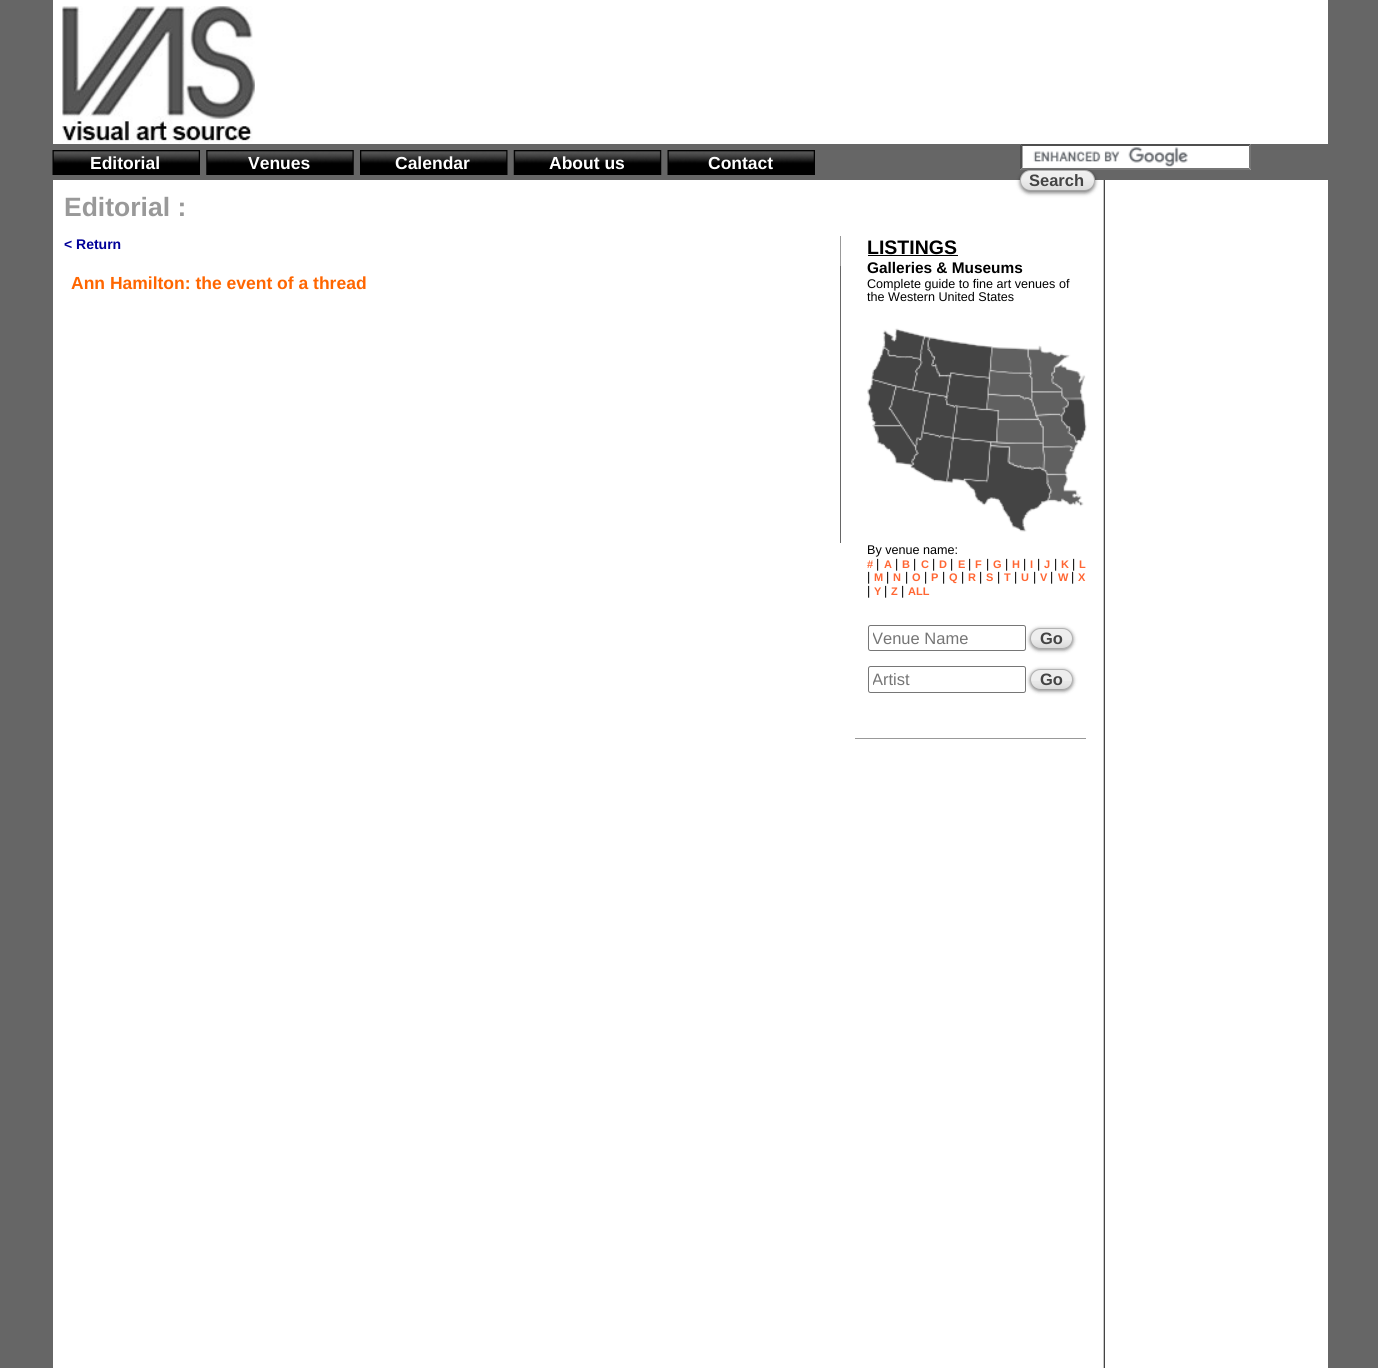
#include <cairo/cairo.h>
#include <math.h>
#include <stddef.h>


static void rounded_rect(cairo_t *cr, double x, double y, double w, double h, double r) {
  cairo_new_sub_path(cr);
  cairo_arc(cr, x + w - r, y + h - r, r, 0, M_PI / 2);
  cairo_arc(cr, x + r, y + h - r, r, M_PI / 2, M_PI);
  cairo_arc(cr, x + r, y + r, r, M_PI, 1.5 * M_PI);
  cairo_arc(cr, x + w - r, y + r, r, 1.5 * M_PI, 2 * M_PI);
  cairo_close_path(cr);
}

static void draw_shadow(cairo_t *cr, double x, double y, double w, double h, double r, double blur, double alpha) {
  cairo_push_group_with_content(cr, CAIRO_CONTENT_ALPHA);
  cairo_set_operator(cr, CAIRO_OPERATOR_SOURCE);
  for (int i = 15; i >= -15 && fmin(w, h) + blur * i / 3 > 0; i -= 2) {
    double e = blur * i / 6;
    cairo_set_source_rgba(cr, 0, 0, 0, alpha * erfc((i - 1) / 8.5) / 2);
    rounded_rect(cr, x - e, y - e, w + 2 * e, h + 2 * e, fmax(0, fmin(r + e + blur * .6, fmin(w, h) / 2 + e)));
    cairo_fill(cr);
  }
  cairo_pattern_t *soft = cairo_pop_group(cr);
  cairo_mask(cr, soft);
  cairo_pattern_destroy(soft);
}

static void draw_image(cairo_t *cr, const char *path, double x, double y, double w, double h) {
  cairo_surface_t *image = cairo_image_surface_create_from_png(path);
  cairo_save(cr);
  cairo_set_source_surface(cr, image, x, y);
  cairo_rectangle(cr, x, y, w, h);
  cairo_fill(cr);
  cairo_restore(cr);
  cairo_surface_destroy(image);
}

static void draw(cairo_t *cr) {
  cairo_set_source_rgb(cr, 102 / 255.0, 102 / 255.0, 102 / 255.0);
  cairo_paint(cr);
  cairo_set_source_rgb(cr, 1, 1, 1);
  cairo_rectangle(cr, 53, 180, 1275, 1188);
  cairo_fill(cr);
  draw_image(cr, "images/1.png", 1103, 180, 2, 1188);
  draw_image(cr, "images/2.png", 52, 150, 148, 25);
  draw_image(cr, "images/3.png", 206, 150, 148, 25);
  draw_image(cr, "images/4.png", 360, 150, 148, 25);
  draw_image(cr, "images/5.png", 513, 150, 149, 25);
  draw_image(cr, "images/6.png", 667, 150, 148, 25);
  cairo_set_source_rgb(cr, 153 / 255.0, 153 / 255.0, 153 / 255.0);
  cairo_rectangle(cr, 840, 236, 1, 30);
  cairo_fill(cr);
  cairo_set_source_rgb(cr, 102 / 255.0, 102 / 255.0, 102 / 255.0);
  cairo_rectangle(cr, 840, 266, 1, 277);
  cairo_fill(cr);
  cairo_set_source_rgb(cr, 153 / 255.0, 153 / 255.0, 153 / 255.0);
  cairo_rectangle(cr, 855, 738, 231, 1);
  cairo_fill(cr);
  cairo_set_source_rgb(cr, 0, 0, 0);
  cairo_rectangle(cr, 868, 255, 90, 1);
  cairo_fill(cr);
  draw_image(cr, "images/7.png", 867, 328, 220, 204);
  rounded_rect(cr, 868.5, 625.5, 157, 25, 2);
  cairo_set_source_rgb(cr, 118 / 255.0, 118 / 255.0, 118 / 255.0);
  cairo_set_line_width(cr, 1);
  cairo_stroke(cr);
  cairo_set_source_rgb(cr, 0, 0, 0);
  draw_shadow(cr, 1030, 629, 43, 21, 10.5, 2, 0.5);
  cairo_set_source_rgb(cr, 238 / 255.0, 238 / 255.0, 238 / 255.0);
  rounded_rect(cr, 1030, 628, 43, 21, 10.5);
  cairo_fill(cr);
  draw_image(cr, "images/8.png", 1031, 640, 41, 9);
  rounded_rect(cr, 1030.5, 628.5, 42, 20, 10);
  cairo_set_source_rgba(cr, 0, 0, 0, 0.25);
  cairo_stroke(cr);
  rounded_rect(cr, 868.5, 666.5, 157, 26, 2);
  cairo_set_source_rgb(cr, 118 / 255.0, 118 / 255.0, 118 / 255.0);
  cairo_stroke(cr);
  cairo_set_source_rgb(cr, 0, 0, 0);
  draw_shadow(cr, 1030, 670, 43, 21, 10.5, 2, 0.5);
  cairo_set_source_rgb(cr, 238 / 255.0, 238 / 255.0, 238 / 255.0);
  rounded_rect(cr, 1030, 669, 43, 21, 10.5);
  cairo_fill(cr);
  draw_image(cr, "images/9.png", 1031, 681, 41, 9);
  rounded_rect(cr, 1030.5, 669.5, 42, 20, 10);
  cairo_set_source_rgba(cr, 0, 0, 0, 0.25);
  cairo_stroke(cr);
  cairo_set_source_rgb(cr, 1, 1, 1);
  cairo_rectangle(cr, 53, 0, 1275, 144);
  cairo_fill(cr);
  draw_image(cr, "images/10.png", 62, 6, 193, 137);
  cairo_rectangle(cr, 1020, 144, 231, 26);
  cairo_fill(cr);
  draw_image(cr, "images/11.png", 1033, 147, 155, 20);
  cairo_set_source_rgb(cr, 79 / 255.0, 79 / 255.0, 79 / 255.0);
  cairo_new_path(cr);
  cairo_move_to(cr, 1020, 144);
  cairo_line_to(cr, 1251, 144);
  cairo_line_to(cr, 1249, 146);
  cairo_line_to(cr, 1022, 146);
  cairo_close_path(cr);
  cairo_fill(cr);
  cairo_set_source_rgb(cr, 118 / 255.0, 118 / 255.0, 118 / 255.0);
  cairo_new_path(cr);
  cairo_move_to(cr, 1251, 144);
  cairo_line_to(cr, 1251, 170);
  cairo_line_to(cr, 1249, 167.5);
  cairo_line_to(cr, 1249, 146);
  cairo_close_path(cr);
  cairo_fill(cr);
  cairo_new_path(cr);
  cairo_move_to(cr, 1251, 170);
  cairo_line_to(cr, 1020, 170);
  cairo_line_to(cr, 1022, 168);
  cairo_line_to(cr, 1249, 168);
  cairo_close_path(cr);
  cairo_fill(cr);
  cairo_set_source_rgb(cr, 79 / 255.0, 79 / 255.0, 79 / 255.0);
  cairo_new_path(cr);
  cairo_move_to(cr, 1020, 170);
  cairo_line_to(cr, 1020, 144);
  cairo_line_to(cr, 1022.5, 146);
  cairo_line_to(cr, 1022.5, 167.5);
  cairo_close_path(cr);
  cairo_fill(cr);
  cairo_set_source_rgb(cr, 0, 0, 0);
  draw_shadow(cr, 1020, 171, 75, 22, 11, 2, 0.5);
  cairo_set_source_rgb(cr, 238 / 255.0, 238 / 255.0, 238 / 255.0);
  rounded_rect(cr, 1020, 170, 75, 21, 10.5);
  cairo_fill(cr);
  draw_image(cr, "images/12.png", 1021, 171, 73, 20);
  rounded_rect(cr, 1020.5, 170.5, 74, 20, 10);
  cairo_set_source_rgba(cr, 0, 0, 0, 0.25);
  cairo_stroke(cr);
  cairo_select_font_face(cr, "Liberation Sans", CAIRO_FONT_SLANT_NORMAL, CAIRO_FONT_WEIGHT_BOLD);
  cairo_set_font_size(cr, 17.5);
  cairo_set_source_rgb(cr, 1, 1, 1);
  cairo_move_to(cr, 90, 169);
  cairo_show_text(cr, "Editorial");
  cairo_move_to(cr, 248, 169);
  cairo_show_text(cr, "Venues");
  cairo_move_to(cr, 395, 169);
  cairo_show_text(cr, "Calendar");
  cairo_move_to(cr, 549, 169);
  cairo_show_text(cr, "About us");
  cairo_move_to(cr, 708, 169);
  cairo_show_text(cr, "Contact");
  cairo_set_font_size(cr, 26.5);
  cairo_set_source_rgb(cr, 153 / 255.0, 153 / 255.0, 153 / 255.0);
  cairo_move_to(cr, 64, 216);
  cairo_show_text(cr, "Editorial :");
  cairo_set_font_size(cr, 14);
  cairo_set_source_rgb(cr, 0, 0, 153 / 255.0);
  cairo_move_to(cr, 64, 249);
  cairo_show_text(cr, "< Return");
  cairo_set_font_size(cr, 17.5);
  cairo_set_source_rgb(cr, 1, 102 / 255.0, 0);
  cairo_move_to(cr, 71, 289);
  cairo_show_text(cr, "Ann Hamilton: the event of a thread");
  cairo_set_font_size(cr, 19.5);
  cairo_set_source_rgb(cr, 0, 0, 0);
  cairo_move_to(cr, 867, 254);
  cairo_show_text(cr, "LISTINGS");
  cairo_set_font_size(cr, 15.4);
  cairo_move_to(cr, 867, 273);
  cairo_show_text(cr, "Galleries & Museums");
  cairo_select_font_face(cr, "Liberation Sans", CAIRO_FONT_SLANT_NORMAL, CAIRO_FONT_WEIGHT_NORMAL);
  cairo_set_font_size(cr, 12.6);
  cairo_move_to(cr, 867, 288);
  cairo_show_text(cr, "Complete guide to fine art venues of");
  cairo_move_to(cr, 867, 301);
  cairo_show_text(cr, "the Western United States");
  cairo_move_to(cr, 867, 554);
  cairo_show_text(cr, "By venue name:");
  cairo_select_font_face(cr, "Liberation Sans", CAIRO_FONT_SLANT_NORMAL, CAIRO_FONT_WEIGHT_BOLD);
  cairo_set_font_size(cr, 11);
  cairo_set_source_rgb(cr, 1, 102 / 255.0, 51 / 255.0);
  cairo_move_to(cr, 867, 568);
  cairo_show_text(cr, "#");
  cairo_select_font_face(cr, "Liberation Sans", CAIRO_FONT_SLANT_NORMAL, CAIRO_FONT_WEIGHT_NORMAL);
  cairo_set_font_size(cr, 12.6);
  cairo_set_source_rgb(cr, 0, 0, 0);
  cairo_move_to(cr, 876, 568);
  cairo_show_text(cr, "|");
  cairo_select_font_face(cr, "Liberation Sans", CAIRO_FONT_SLANT_NORMAL, CAIRO_FONT_WEIGHT_BOLD);
  cairo_set_font_size(cr, 11);
  cairo_set_source_rgb(cr, 1, 102 / 255.0, 51 / 255.0);
  cairo_move_to(cr, 884, 568);
  cairo_show_text(cr, "A");
  cairo_select_font_face(cr, "Liberation Sans", CAIRO_FONT_SLANT_NORMAL, CAIRO_FONT_WEIGHT_NORMAL);
  cairo_set_font_size(cr, 12.6);
  cairo_set_source_rgb(cr, 0, 0, 0);
  cairo_move_to(cr, 895, 568);
  cairo_show_text(cr, "|");
  cairo_select_font_face(cr, "Liberation Sans", CAIRO_FONT_SLANT_NORMAL, CAIRO_FONT_WEIGHT_BOLD);
  cairo_set_font_size(cr, 11);
  cairo_set_source_rgb(cr, 1, 102 / 255.0, 51 / 255.0);
  cairo_move_to(cr, 902, 568);
  cairo_show_text(cr, "B");
  cairo_select_font_face(cr, "Liberation Sans", CAIRO_FONT_SLANT_NORMAL, CAIRO_FONT_WEIGHT_NORMAL);
  cairo_set_font_size(cr, 12.6);
  cairo_set_source_rgb(cr, 0, 0, 0);
  cairo_move_to(cr, 913, 568);
  cairo_show_text(cr, "|");
  cairo_select_font_face(cr, "Liberation Sans", CAIRO_FONT_SLANT_NORMAL, CAIRO_FONT_WEIGHT_BOLD);
  cairo_set_font_size(cr, 11);
  cairo_set_source_rgb(cr, 1, 102 / 255.0, 51 / 255.0);
  cairo_move_to(cr, 921, 568);
  cairo_show_text(cr, "C");
  cairo_select_font_face(cr, "Liberation Sans", CAIRO_FONT_SLANT_NORMAL, CAIRO_FONT_WEIGHT_NORMAL);
  cairo_set_font_size(cr, 12.6);
  cairo_set_source_rgb(cr, 0, 0, 0);
  cairo_move_to(cr, 932, 568);
  cairo_show_text(cr, "|");
  cairo_select_font_face(cr, "Liberation Sans", CAIRO_FONT_SLANT_NORMAL, CAIRO_FONT_WEIGHT_BOLD);
  cairo_set_font_size(cr, 11);
  cairo_set_source_rgb(cr, 1, 102 / 255.0, 51 / 255.0);
  cairo_move_to(cr, 939, 568);
  cairo_show_text(cr, "D");
  cairo_select_font_face(cr, "Liberation Sans", CAIRO_FONT_SLANT_NORMAL, CAIRO_FONT_WEIGHT_NORMAL);
  cairo_set_font_size(cr, 12.6);
  cairo_set_source_rgb(cr, 0, 0, 0);
  cairo_move_to(cr, 950, 568);
  cairo_show_text(cr, "|");
  cairo_select_font_face(cr, "Liberation Sans", CAIRO_FONT_SLANT_NORMAL, CAIRO_FONT_WEIGHT_BOLD);
  cairo_set_font_size(cr, 11);
  cairo_set_source_rgb(cr, 1, 102 / 255.0, 51 / 255.0);
  cairo_move_to(cr, 958, 568);
  cairo_show_text(cr, "E");
  cairo_select_font_face(cr, "Liberation Sans", CAIRO_FONT_SLANT_NORMAL, CAIRO_FONT_WEIGHT_NORMAL);
  cairo_set_font_size(cr, 12.6);
  cairo_set_source_rgb(cr, 0, 0, 0);
  cairo_move_to(cr, 968, 568);
  cairo_show_text(cr, "|");
  cairo_select_font_face(cr, "Liberation Sans", CAIRO_FONT_SLANT_NORMAL, CAIRO_FONT_WEIGHT_BOLD);
  cairo_set_font_size(cr, 11);
  cairo_set_source_rgb(cr, 1, 102 / 255.0, 51 / 255.0);
  cairo_move_to(cr, 975, 568);
  cairo_show_text(cr, "F");
  cairo_select_font_face(cr, "Liberation Sans", CAIRO_FONT_SLANT_NORMAL, CAIRO_FONT_WEIGHT_NORMAL);
  cairo_set_font_size(cr, 12.6);
  cairo_set_source_rgb(cr, 0, 0, 0);
  cairo_move_to(cr, 986, 568);
  cairo_show_text(cr, "|");
  cairo_select_font_face(cr, "Liberation Sans", CAIRO_FONT_SLANT_NORMAL, CAIRO_FONT_WEIGHT_BOLD);
  cairo_set_font_size(cr, 11);
  cairo_set_source_rgb(cr, 1, 102 / 255.0, 51 / 255.0);
  cairo_move_to(cr, 993, 568);
  cairo_show_text(cr, "G");
  cairo_select_font_face(cr, "Liberation Sans", CAIRO_FONT_SLANT_NORMAL, CAIRO_FONT_WEIGHT_NORMAL);
  cairo_set_font_size(cr, 12.6);
  cairo_set_source_rgb(cr, 0, 0, 0);
  cairo_move_to(cr, 1005, 568);
  cairo_show_text(cr, "|");
  cairo_select_font_face(cr, "Liberation Sans", CAIRO_FONT_SLANT_NORMAL, CAIRO_FONT_WEIGHT_BOLD);
  cairo_set_font_size(cr, 11);
  cairo_set_source_rgb(cr, 1, 102 / 255.0, 51 / 255.0);
  cairo_move_to(cr, 1012, 568);
  cairo_show_text(cr, "H");
  cairo_select_font_face(cr, "Liberation Sans", CAIRO_FONT_SLANT_NORMAL, CAIRO_FONT_WEIGHT_NORMAL);
  cairo_set_font_size(cr, 12.6);
  cairo_set_source_rgb(cr, 0, 0, 0);
  cairo_move_to(cr, 1023, 568);
  cairo_show_text(cr, "|");
  cairo_select_font_face(cr, "Liberation Sans", CAIRO_FONT_SLANT_NORMAL, CAIRO_FONT_WEIGHT_BOLD);
  cairo_set_font_size(cr, 11);
  cairo_set_source_rgb(cr, 1, 102 / 255.0, 51 / 255.0);
  cairo_move_to(cr, 1030, 568);
  cairo_show_text(cr, "I");
  cairo_select_font_face(cr, "Liberation Sans", CAIRO_FONT_SLANT_NORMAL, CAIRO_FONT_WEIGHT_NORMAL);
  cairo_set_font_size(cr, 12.6);
  cairo_set_source_rgb(cr, 0, 0, 0);
  cairo_move_to(cr, 1037, 568);
  cairo_show_text(cr, "|");
  cairo_select_font_face(cr, "Liberation Sans", CAIRO_FONT_SLANT_NORMAL, CAIRO_FONT_WEIGHT_BOLD);
  cairo_set_font_size(cr, 11);
  cairo_set_source_rgb(cr, 1, 102 / 255.0, 51 / 255.0);
  cairo_move_to(cr, 1044, 568);
  cairo_show_text(cr, "J");
  cairo_select_font_face(cr, "Liberation Sans", CAIRO_FONT_SLANT_NORMAL, CAIRO_FONT_WEIGHT_NORMAL);
  cairo_set_font_size(cr, 12.6);
  cairo_set_source_rgb(cr, 0, 0, 0);
  cairo_move_to(cr, 1054, 568);
  cairo_show_text(cr, "|");
  cairo_select_font_face(cr, "Liberation Sans", CAIRO_FONT_SLANT_NORMAL, CAIRO_FONT_WEIGHT_BOLD);
  cairo_set_font_size(cr, 11);
  cairo_set_source_rgb(cr, 1, 102 / 255.0, 51 / 255.0);
  cairo_move_to(cr, 1061, 568);
  cairo_show_text(cr, "K");
  cairo_select_font_face(cr, "Liberation Sans", CAIRO_FONT_SLANT_NORMAL, CAIRO_FONT_WEIGHT_NORMAL);
  cairo_set_font_size(cr, 12.6);
  cairo_set_source_rgb(cr, 0, 0, 0);
  cairo_move_to(cr, 1072, 568);
  cairo_show_text(cr, "|");
  cairo_select_font_face(cr, "Liberation Sans", CAIRO_FONT_SLANT_NORMAL, CAIRO_FONT_WEIGHT_BOLD);
  cairo_set_font_size(cr, 11);
  cairo_set_source_rgb(cr, 1, 102 / 255.0, 51 / 255.0);
  cairo_move_to(cr, 1079, 568);
  cairo_show_text(cr, "L");
  cairo_select_font_face(cr, "Liberation Sans", CAIRO_FONT_SLANT_NORMAL, CAIRO_FONT_WEIGHT_NORMAL);
  cairo_set_font_size(cr, 12.6);
  cairo_set_source_rgb(cr, 0, 0, 0);
  cairo_move_to(cr, 867, 581);
  cairo_show_text(cr, "|");
  cairo_select_font_face(cr, "Liberation Sans", CAIRO_FONT_SLANT_NORMAL, CAIRO_FONT_WEIGHT_BOLD);
  cairo_set_font_size(cr, 11);
  cairo_set_source_rgb(cr, 1, 102 / 255.0, 51 / 255.0);
  cairo_move_to(cr, 874, 581);
  cairo_show_text(cr, "M");
  cairo_select_font_face(cr, "Liberation Sans", CAIRO_FONT_SLANT_NORMAL, CAIRO_FONT_WEIGHT_NORMAL);
  cairo_set_font_size(cr, 12.6);
  cairo_set_source_rgb(cr, 0, 0, 0);
  cairo_move_to(cr, 886, 581);
  cairo_show_text(cr, "|");
  cairo_select_font_face(cr, "Liberation Sans", CAIRO_FONT_SLANT_NORMAL, CAIRO_FONT_WEIGHT_BOLD);
  cairo_set_font_size(cr, 11);
  cairo_set_source_rgb(cr, 1, 102 / 255.0, 51 / 255.0);
  cairo_move_to(cr, 893, 581);
  cairo_show_text(cr, "N");
  cairo_select_font_face(cr, "Liberation Sans", CAIRO_FONT_SLANT_NORMAL, CAIRO_FONT_WEIGHT_NORMAL);
  cairo_set_font_size(cr, 12.6);
  cairo_set_source_rgb(cr, 0, 0, 0);
  cairo_move_to(cr, 905, 581);
  cairo_show_text(cr, "|");
  cairo_select_font_face(cr, "Liberation Sans", CAIRO_FONT_SLANT_NORMAL, CAIRO_FONT_WEIGHT_BOLD);
  cairo_set_font_size(cr, 11);
  cairo_set_source_rgb(cr, 1, 102 / 255.0, 51 / 255.0);
  cairo_move_to(cr, 912, 581);
  cairo_show_text(cr, "O");
  cairo_select_font_face(cr, "Liberation Sans", CAIRO_FONT_SLANT_NORMAL, CAIRO_FONT_WEIGHT_NORMAL);
  cairo_set_font_size(cr, 12.6);
  cairo_set_source_rgb(cr, 0, 0, 0);
  cairo_move_to(cr, 924, 581);
  cairo_show_text(cr, "|");
  cairo_select_font_face(cr, "Liberation Sans", CAIRO_FONT_SLANT_NORMAL, CAIRO_FONT_WEIGHT_BOLD);
  cairo_set_font_size(cr, 11);
  cairo_set_source_rgb(cr, 1, 102 / 255.0, 51 / 255.0);
  cairo_move_to(cr, 931, 581);
  cairo_show_text(cr, "P");
  cairo_select_font_face(cr, "Liberation Sans", CAIRO_FONT_SLANT_NORMAL, CAIRO_FONT_WEIGHT_NORMAL);
  cairo_set_font_size(cr, 12.6);
  cairo_set_source_rgb(cr, 0, 0, 0);
  cairo_move_to(cr, 942, 581);
  cairo_show_text(cr, "|");
  cairo_select_font_face(cr, "Liberation Sans", CAIRO_FONT_SLANT_NORMAL, CAIRO_FONT_WEIGHT_BOLD);
  cairo_set_font_size(cr, 11);
  cairo_set_source_rgb(cr, 1, 102 / 255.0, 51 / 255.0);
  cairo_move_to(cr, 949, 581);
  cairo_show_text(cr, "Q");
  cairo_select_font_face(cr, "Liberation Sans", CAIRO_FONT_SLANT_NORMAL, CAIRO_FONT_WEIGHT_NORMAL);
  cairo_set_font_size(cr, 12.6);
  cairo_set_source_rgb(cr, 0, 0, 0);
  cairo_move_to(cr, 961, 581);
  cairo_show_text(cr, "|");
  cairo_select_font_face(cr, "Liberation Sans", CAIRO_FONT_SLANT_NORMAL, CAIRO_FONT_WEIGHT_BOLD);
  cairo_set_font_size(cr, 11);
  cairo_set_source_rgb(cr, 1, 102 / 255.0, 51 / 255.0);
  cairo_move_to(cr, 968, 581);
  cairo_show_text(cr, "R");
  cairo_select_font_face(cr, "Liberation Sans", CAIRO_FONT_SLANT_NORMAL, CAIRO_FONT_WEIGHT_NORMAL);
  cairo_set_font_size(cr, 12.6);
  cairo_set_source_rgb(cr, 0, 0, 0);
  cairo_move_to(cr, 979, 581);
  cairo_show_text(cr, "|");
  cairo_select_font_face(cr, "Liberation Sans", CAIRO_FONT_SLANT_NORMAL, CAIRO_FONT_WEIGHT_BOLD);
  cairo_set_font_size(cr, 11);
  cairo_set_source_rgb(cr, 1, 102 / 255.0, 51 / 255.0);
  cairo_move_to(cr, 986, 581);
  cairo_show_text(cr, "S");
  cairo_select_font_face(cr, "Liberation Sans", CAIRO_FONT_SLANT_NORMAL, CAIRO_FONT_WEIGHT_NORMAL);
  cairo_set_font_size(cr, 12.6);
  cairo_set_source_rgb(cr, 0, 0, 0);
  cairo_move_to(cr, 997, 581);
  cairo_show_text(cr, "|");
  cairo_select_font_face(cr, "Liberation Sans", CAIRO_FONT_SLANT_NORMAL, CAIRO_FONT_WEIGHT_BOLD);
  cairo_set_font_size(cr, 11);
  cairo_set_source_rgb(cr, 1, 102 / 255.0, 51 / 255.0);
  cairo_move_to(cr, 1004, 581);
  cairo_show_text(cr, "T");
  cairo_select_font_face(cr, "Liberation Sans", CAIRO_FONT_SLANT_NORMAL, CAIRO_FONT_WEIGHT_NORMAL);
  cairo_set_font_size(cr, 12.6);
  cairo_set_source_rgb(cr, 0, 0, 0);
  cairo_move_to(cr, 1014, 581);
  cairo_show_text(cr, "|");
  cairo_select_font_face(cr, "Liberation Sans", CAIRO_FONT_SLANT_NORMAL, CAIRO_FONT_WEIGHT_BOLD);
  cairo_set_font_size(cr, 11);
  cairo_set_source_rgb(cr, 1, 102 / 255.0, 51 / 255.0);
  cairo_move_to(cr, 1021, 581);
  cairo_show_text(cr, "U");
  cairo_select_font_face(cr, "Liberation Sans", CAIRO_FONT_SLANT_NORMAL, CAIRO_FONT_WEIGHT_NORMAL);
  cairo_set_font_size(cr, 12.6);
  cairo_set_source_rgb(cr, 0, 0, 0);
  cairo_move_to(cr, 1033, 581);
  cairo_show_text(cr, "|");
  cairo_select_font_face(cr, "Liberation Sans", CAIRO_FONT_SLANT_NORMAL, CAIRO_FONT_WEIGHT_BOLD);
  cairo_set_font_size(cr, 11);
  cairo_set_source_rgb(cr, 1, 102 / 255.0, 51 / 255.0);
  cairo_move_to(cr, 1040, 581);
  cairo_show_text(cr, "V");
  cairo_select_font_face(cr, "Liberation Sans", CAIRO_FONT_SLANT_NORMAL, CAIRO_FONT_WEIGHT_NORMAL);
  cairo_set_font_size(cr, 12.6);
  cairo_set_source_rgb(cr, 0, 0, 0);
  cairo_move_to(cr, 1050, 581);
  cairo_show_text(cr, "|");
  cairo_select_font_face(cr, "Liberation Sans", CAIRO_FONT_SLANT_NORMAL, CAIRO_FONT_WEIGHT_BOLD);
  cairo_set_font_size(cr, 11);
  cairo_set_source_rgb(cr, 1, 102 / 255.0, 51 / 255.0);
  cairo_move_to(cr, 1058, 581);
  cairo_show_text(cr, "W");
  cairo_select_font_face(cr, "Liberation Sans", CAIRO_FONT_SLANT_NORMAL, CAIRO_FONT_WEIGHT_NORMAL);
  cairo_set_font_size(cr, 12.6);
  cairo_set_source_rgb(cr, 0, 0, 0);
  cairo_move_to(cr, 1071, 581);
  cairo_show_text(cr, "|");
  cairo_select_font_face(cr, "Liberation Sans", CAIRO_FONT_SLANT_NORMAL, CAIRO_FONT_WEIGHT_BOLD);
  cairo_set_font_size(cr, 11);
  cairo_set_source_rgb(cr, 1, 102 / 255.0, 51 / 255.0);
  cairo_move_to(cr, 1078, 581);
  cairo_show_text(cr, "X");
  cairo_select_font_face(cr, "Liberation Sans", CAIRO_FONT_SLANT_NORMAL, CAIRO_FONT_WEIGHT_NORMAL);
  cairo_set_font_size(cr, 12.6);
  cairo_set_source_rgb(cr, 0, 0, 0);
  cairo_move_to(cr, 867, 595);
  cairo_show_text(cr, "|");
  cairo_select_font_face(cr, "Liberation Sans", CAIRO_FONT_SLANT_NORMAL, CAIRO_FONT_WEIGHT_BOLD);
  cairo_set_font_size(cr, 11);
  cairo_set_source_rgb(cr, 1, 102 / 255.0, 51 / 255.0);
  cairo_move_to(cr, 874, 595);
  cairo_show_text(cr, "Y");
  cairo_select_font_face(cr, "Liberation Sans", CAIRO_FONT_SLANT_NORMAL, CAIRO_FONT_WEIGHT_NORMAL);
  cairo_set_font_size(cr, 12.6);
  cairo_set_source_rgb(cr, 0, 0, 0);
  cairo_move_to(cr, 884, 595);
  cairo_show_text(cr, "|");
  cairo_select_font_face(cr, "Liberation Sans", CAIRO_FONT_SLANT_NORMAL, CAIRO_FONT_WEIGHT_BOLD);
  cairo_set_font_size(cr, 11);
  cairo_set_source_rgb(cr, 1, 102 / 255.0, 51 / 255.0);
  cairo_move_to(cr, 891, 595);
  cairo_show_text(cr, "Z");
  cairo_select_font_face(cr, "Liberation Sans", CAIRO_FONT_SLANT_NORMAL, CAIRO_FONT_WEIGHT_NORMAL);
  cairo_set_font_size(cr, 12.6);
  cairo_set_source_rgb(cr, 0, 0, 0);
  cairo_move_to(cr, 901, 595);
  cairo_show_text(cr, "|");
  cairo_select_font_face(cr, "Liberation Sans", CAIRO_FONT_SLANT_NORMAL, CAIRO_FONT_WEIGHT_BOLD);
  cairo_set_font_size(cr, 11);
  cairo_set_source_rgb(cr, 1, 102 / 255.0, 51 / 255.0);
  cairo_move_to(cr, 908, 595);
  cairo_show_text(cr, "ALL");
  cairo_save(cr);
  cairo_rectangle(cr, 873, 629, 148, 19);
  cairo_clip(cr);
  cairo_select_font_face(cr, "Liberation Sans", CAIRO_FONT_SLANT_NORMAL, CAIRO_FONT_WEIGHT_NORMAL);
  cairo_set_font_size(cr, 16.5);
  cairo_set_source_rgb(cr, 117 / 255.0, 117 / 255.0, 117 / 255.0);
  cairo_move_to(cr, 872, 644);
  cairo_show_text(cr, "Venue Name");
  cairo_restore(cr);
  cairo_set_font_size(cr, 16.5);
  cairo_set_source_rgb(cr, 68 / 255.0, 68 / 255.0, 68 / 255.0);
  cairo_move_to(cr, 1040, 644);
  cairo_show_text(cr, "Go");
  cairo_save(cr);
  cairo_rectangle(cr, 873, 670, 148, 19);
  cairo_clip(cr);
  cairo_select_font_face(cr, "Liberation Sans", CAIRO_FONT_SLANT_NORMAL, CAIRO_FONT_WEIGHT_NORMAL);
  cairo_set_source_rgb(cr, 117 / 255.0, 117 / 255.0, 117 / 255.0);
  cairo_move_to(cr, 872, 685);
  cairo_show_text(cr, "Artist");
  cairo_restore(cr);
  cairo_move_to(cr, 1040, 685);
  cairo_show_text(cr, "Go");
  cairo_move_to(cr, 1029, 186);
  cairo_show_text(cr, "Search");
}

int main(void) {
  cairo_surface_t *surface = cairo_image_surface_create(CAIRO_FORMAT_RGB24, 1378, 1368);
  cairo_t *cr = cairo_create(surface);
  cairo_font_options_t *options = cairo_font_options_create();
  cairo_font_options_set_hint_metrics(options, CAIRO_HINT_METRICS_OFF);
  cairo_font_options_set_hint_style(options, CAIRO_HINT_STYLE_NONE);
  cairo_set_font_options(cr, options);
  cairo_set_miter_limit(cr, 4);
  draw(cr);
  cairo_surface_write_to_png(surface, "out.png");
  cairo_font_options_destroy(options);
  cairo_destroy(cr);
  cairo_surface_destroy(surface);
  return 0;
}
